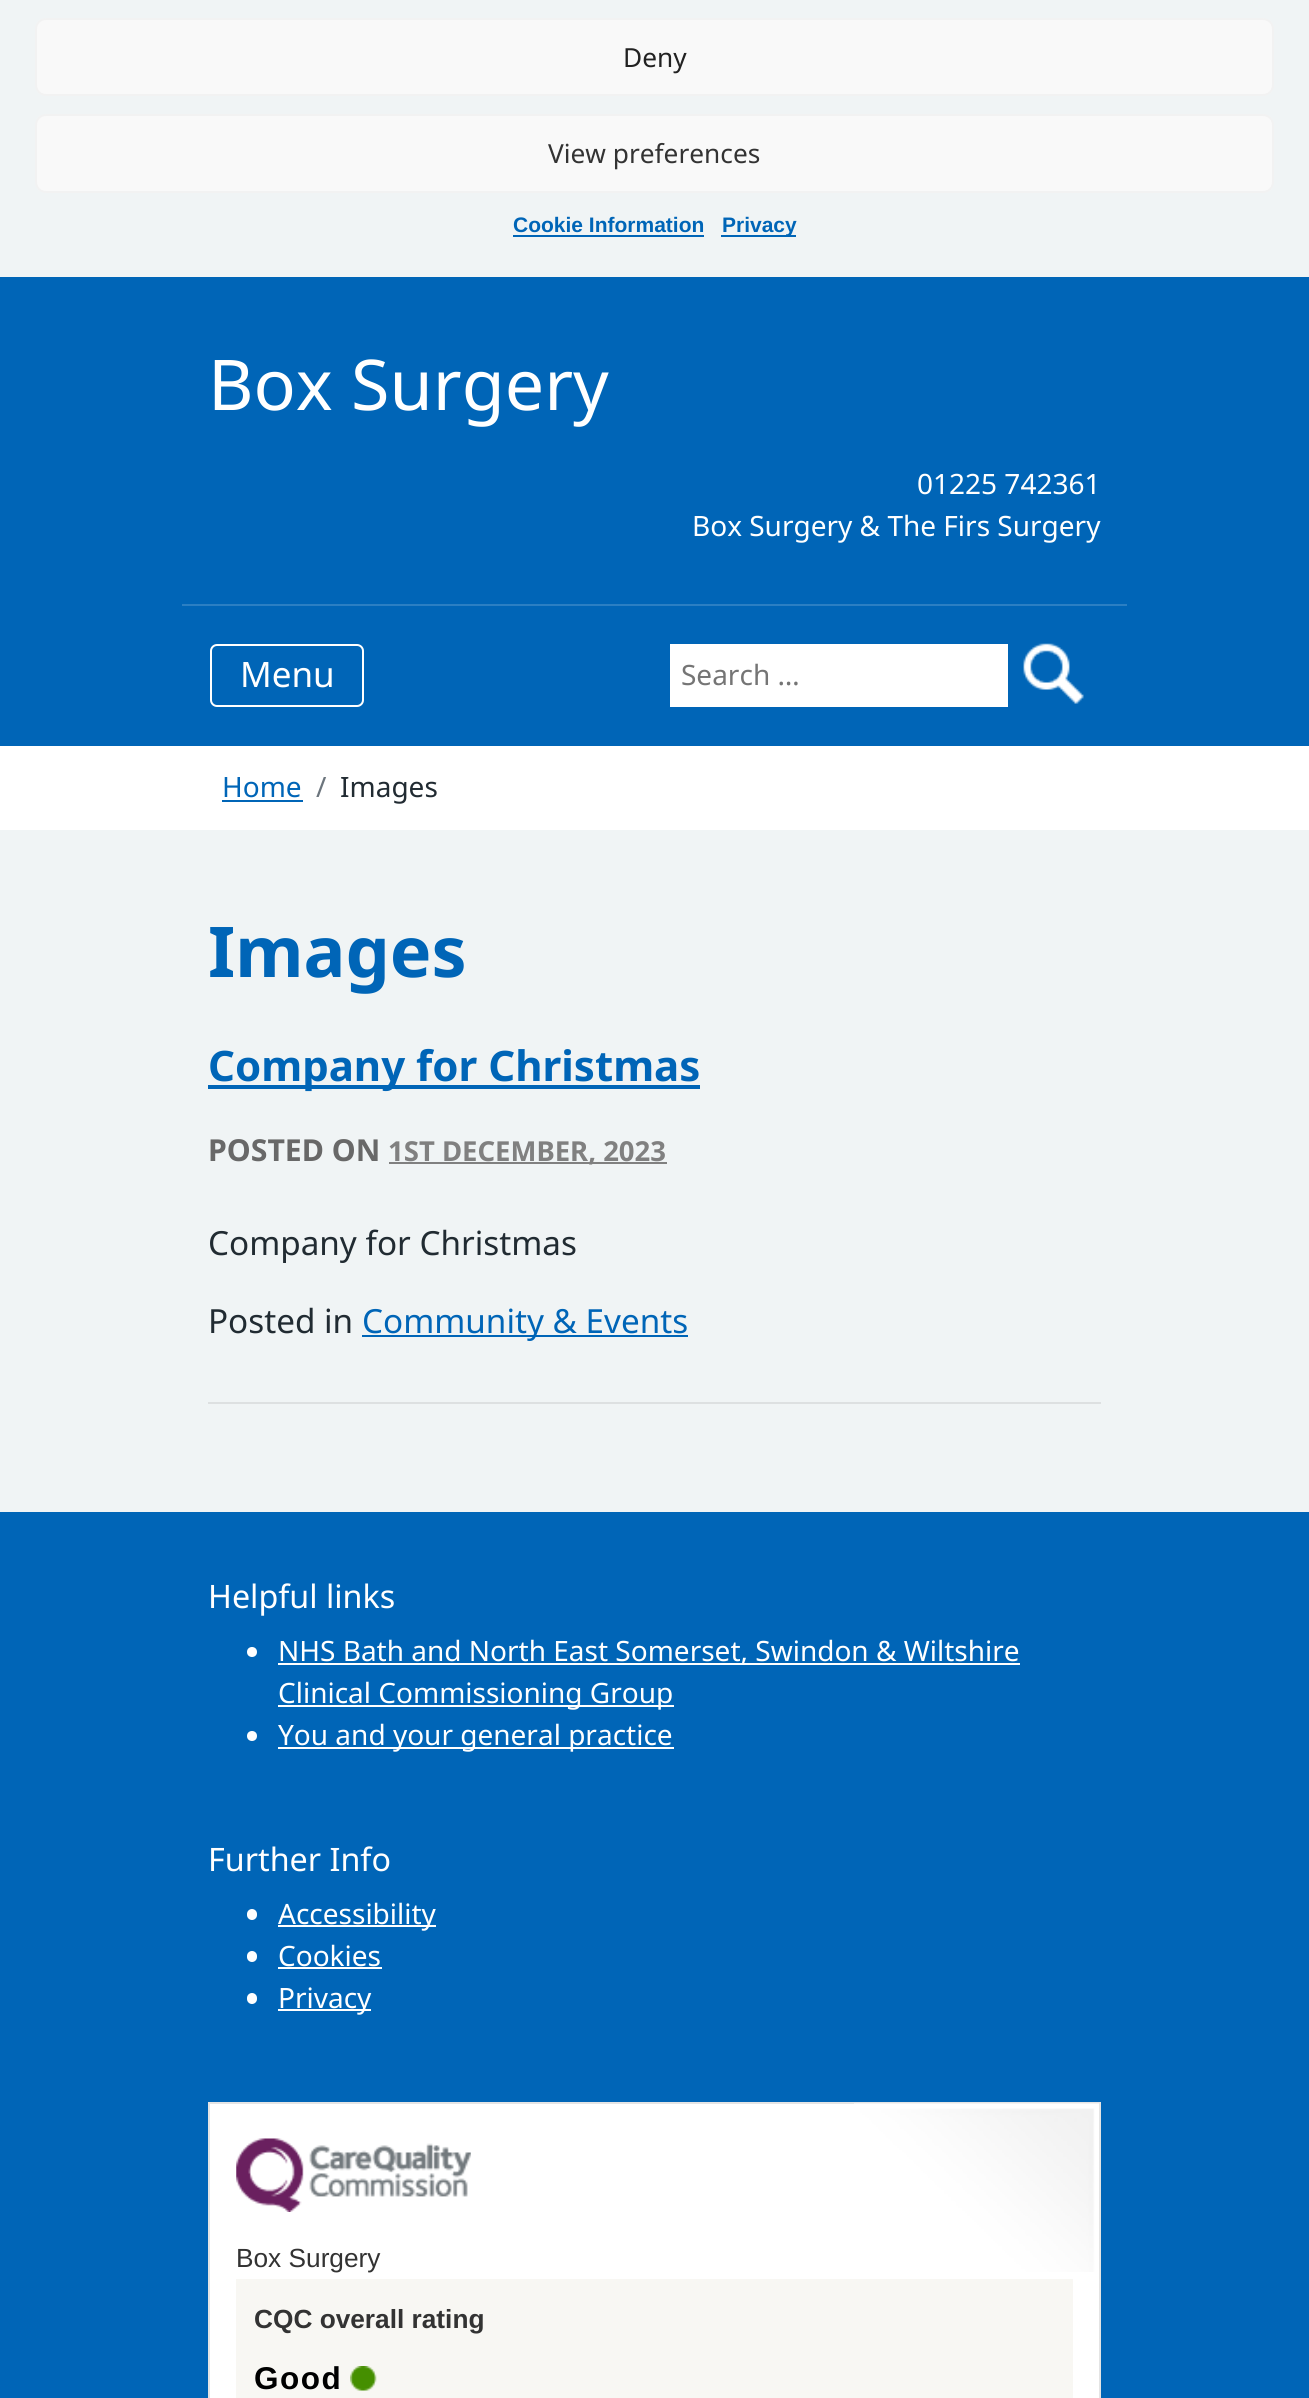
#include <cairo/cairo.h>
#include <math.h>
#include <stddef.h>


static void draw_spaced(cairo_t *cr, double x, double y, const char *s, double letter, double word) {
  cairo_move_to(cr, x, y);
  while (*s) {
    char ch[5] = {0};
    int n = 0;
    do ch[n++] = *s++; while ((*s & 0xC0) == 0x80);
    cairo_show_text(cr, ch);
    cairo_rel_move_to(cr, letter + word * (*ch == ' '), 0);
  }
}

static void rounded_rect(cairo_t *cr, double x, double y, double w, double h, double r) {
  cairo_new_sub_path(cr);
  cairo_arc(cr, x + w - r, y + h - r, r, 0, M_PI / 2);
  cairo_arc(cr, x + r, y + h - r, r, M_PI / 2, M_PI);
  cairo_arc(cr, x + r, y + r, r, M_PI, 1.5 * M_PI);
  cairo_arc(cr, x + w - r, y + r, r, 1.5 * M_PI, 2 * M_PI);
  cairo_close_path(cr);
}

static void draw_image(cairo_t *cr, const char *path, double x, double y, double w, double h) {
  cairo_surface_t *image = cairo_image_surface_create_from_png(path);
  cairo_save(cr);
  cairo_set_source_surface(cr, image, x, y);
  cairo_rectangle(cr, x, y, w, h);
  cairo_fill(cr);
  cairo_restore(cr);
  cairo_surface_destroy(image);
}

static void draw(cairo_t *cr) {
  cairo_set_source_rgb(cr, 240 / 255.0, 244 / 255.0, 245 / 255.0);
  cairo_paint(cr);
  cairo_set_source_rgb(cr, 249 / 255.0, 249 / 255.0, 249 / 255.0);
  rounded_rect(cr, 36, 19, 1237, 76, 10);
  cairo_fill_preserve(cr);
  cairo_set_source_rgb(cr, 242 / 255.0, 242 / 255.0, 242 / 255.0);
  cairo_stroke(cr);
  cairo_set_source_rgb(cr, 249 / 255.0, 249 / 255.0, 249 / 255.0);
  rounded_rect(cr, 36, 115, 1237, 77, 10);
  cairo_fill_preserve(cr);
  cairo_set_source_rgb(cr, 242 / 255.0, 242 / 255.0, 242 / 255.0);
  cairo_stroke(cr);
  cairo_set_source_rgb(cr, 0, 101 / 255.0, 183 / 255.0);
  cairo_rectangle(cr, 513, 235, 191, 2);
  cairo_fill(cr);
  cairo_rectangle(cr, 721, 235, 75, 2);
  cairo_fill(cr);
  cairo_rectangle(cr, 0, 277, 1309, 469);
  cairo_fill(cr);
  cairo_set_source_rgb(cr, 43 / 255.0, 127 / 255.0, 195 / 255.0);
  cairo_rectangle(cr, 182, 604, 945, 2);
  cairo_fill(cr);
  rounded_rect(cr, 211, 645, 152, 61, 6);
  cairo_set_source_rgb(cr, 1, 1, 1);
  cairo_stroke(cr);
  cairo_rectangle(cr, 670, 644, 338, 63);
  cairo_fill(cr);
  draw_image(cr, "images/1.png", 1023, 643, 61, 61);
  cairo_rectangle(cr, 0, 746, 1309, 84);
  cairo_fill(cr);
  cairo_set_source_rgb(cr, 0, 101 / 255.0, 183 / 255.0);
  cairo_rectangle(cr, 222, 800, 81, 2);
  cairo_fill(cr);
  cairo_set_source_rgb(cr, 221 / 255.0, 224 / 255.0, 225 / 255.0);
  cairo_rectangle(cr, 208, 1402, 893, 2);
  cairo_fill(cr);
  cairo_set_source_rgb(cr, 0, 101 / 255.0, 183 / 255.0);
  cairo_rectangle(cr, 208, 1085, 492, 4);
  cairo_fill(cr);
  cairo_set_source_rgb(cr, 128 / 255.0, 128 / 255.0, 128 / 255.0);
  cairo_rectangle(cr, 389, 1162, 278, 2);
  cairo_fill(cr);
  cairo_set_source_rgb(cr, 0, 101 / 255.0, 183 / 255.0);
  cairo_rectangle(cr, 362, 1335, 326, 2);
  cairo_fill(cr);
  cairo_rectangle(cr, 0, 1512, 1309, 886);
  cairo_fill(cr);
  cairo_set_source_rgb(cr, 1, 1, 1);
  cairo_arc(cr, 252, 1652, 5, 0, 2 * M_PI);
  cairo_fill(cr);
  cairo_rectangle(cr, 278, 1663, 742, 2);
  cairo_fill(cr);
  cairo_rectangle(cr, 278, 1705, 396, 2);
  cairo_fill(cr);
  cairo_arc(cr, 252, 1736, 5, 0, 2 * M_PI);
  cairo_fill(cr);
  cairo_rectangle(cr, 278, 1747, 396, 2);
  cairo_fill(cr);
  rounded_rect(cr, 247, 1909, 10, 11, 5);
  cairo_fill(cr);
  cairo_rectangle(cr, 278, 1925, 158, 2);
  cairo_fill(cr);
  rounded_rect(cr, 247, 1951, 10, 11, 5);
  cairo_fill(cr);
  cairo_rectangle(cr, 278, 1967, 104, 2);
  cairo_fill(cr);
  rounded_rect(cr, 247, 1993, 10, 11, 5);
  cairo_fill(cr);
  cairo_rectangle(cr, 278, 2009, 93, 2);
  cairo_fill(cr);
  cairo_rectangle(cr, 209, 2103, 891, 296);
  cairo_fill_preserve(cr);
  cairo_set_source_rgb(cr, 228 / 255.0, 228 / 255.0, 228 / 255.0);
  cairo_stroke(cr);
  draw_image(cr, "images/2.png", 854, 2103, 245, 169);
  draw_image(cr, "images/3.png", 236, 2138, 235, 74);
  cairo_set_source_rgb(cr, 248 / 255.0, 247 / 255.0, 243 / 255.0);
  cairo_rectangle(cr, 236, 2279, 837, 119);
  cairo_fill(cr);
  draw_image(cr, "images/4.png", 350, 2366, 27, 25);
  cairo_select_font_face(cr, "Noto Sans", CAIRO_FONT_SLANT_NORMAL, CAIRO_FONT_WEIGHT_NORMAL);
  cairo_set_font_size(cr, 26.25);
  cairo_set_source_rgb(cr, 34 / 255.0, 34 / 255.0, 34 / 255.0);
  cairo_move_to(cr, 623, 67);
  cairo_show_text(cr, "Deny");
  cairo_set_source_rgb(cr, 51 / 255.0, 51 / 255.0, 51 / 255.0);
  cairo_move_to(cr, 548, 163);
  cairo_show_text(cr, "View preferences");
  cairo_select_font_face(cr, "Liberation Sans", CAIRO_FONT_SLANT_NORMAL, CAIRO_FONT_WEIGHT_BOLD);
  cairo_set_font_size(cr, 21);
  cairo_set_source_rgb(cr, 0, 101 / 255.0, 183 / 255.0);
  cairo_move_to(cr, 513, 232);
  cairo_show_text(cr, "Cookie Information");
  cairo_move_to(cr, 722, 232);
  cairo_show_text(cr, "Privacy");
  cairo_select_font_face(cr, "Noto Sans", CAIRO_FONT_SLANT_NORMAL, CAIRO_FONT_WEIGHT_NORMAL);
  cairo_set_font_size(cr, 70);
  cairo_set_source_rgb(cr, 1, 1, 1);
  cairo_move_to(cr, 208, 410);
  cairo_show_text(cr, "Box Surgery");
  cairo_set_font_size(cr, 28);
  cairo_move_to(cr, 917, 494);
  cairo_show_text(cr, "01225 742361");
  cairo_move_to(cr, 692, 536);
  cairo_show_text(cr, "Box Surgery & The Firs Surgery");
  cairo_set_font_size(cr, 35);
  cairo_move_to(cr, 240, 687);
  cairo_show_text(cr, "Menu");
  cairo_set_font_size(cr, 28);
  cairo_set_source_rgb(cr, 117 / 255.0, 117 / 255.0, 117 / 255.0);
  cairo_move_to(cr, 681, 685);
  cairo_show_text(cr, "Search …");
  cairo_set_source_rgb(cr, 0, 101 / 255.0, 183 / 255.0);
  cairo_move_to(cr, 222, 797);
  cairo_show_text(cr, "Home");
  cairo_set_source_rgb(cr, 108 / 255.0, 117 / 255.0, 125 / 255.0);
  cairo_move_to(cr, 316, 797);
  cairo_show_text(cr, "/");
  cairo_set_source_rgb(cr, 33 / 255.0, 43 / 255.0, 50 / 255.0);
  cairo_move_to(cr, 340, 797);
  cairo_show_text(cr, "Images");
  cairo_select_font_face(cr, "Noto Sans", CAIRO_FONT_SLANT_NORMAL, CAIRO_FONT_WEIGHT_BOLD);
  cairo_set_font_size(cr, 70);
  cairo_set_source_rgb(cr, 0, 101 / 255.0, 183 / 255.0);
  cairo_move_to(cr, 208, 977);
  cairo_show_text(cr, "Images");
  cairo_set_font_size(cr, 42);
  cairo_move_to(cr, 208, 1081);
  cairo_show_text(cr, "Company for Christmas");
  cairo_set_font_size(cr, 30.25);
  cairo_set_source_rgb(cr, 104 / 255.0, 104 / 255.0, 104 / 255.0);
  cairo_move_to(cr, 208, 1161);
  cairo_show_text(cr, "POSTED ON");
  cairo_set_font_size(cr, 27.5);
  cairo_set_source_rgb(cr, 128 / 255.0, 128 / 255.0, 128 / 255.0);
  cairo_move_to(cr, 388, 1161);
  cairo_show_text(cr, "1ST DECEMBER, 2023");
  cairo_select_font_face(cr, "Noto Sans", CAIRO_FONT_SLANT_NORMAL, CAIRO_FONT_WEIGHT_NORMAL);
  cairo_set_font_size(cr, 33.25);
  cairo_set_source_rgb(cr, 33 / 255.0, 43 / 255.0, 50 / 255.0);
  cairo_move_to(cr, 208, 1255);
  cairo_show_text(cr, "Company for Christmas");
  cairo_move_to(cr, 208, 1333);
  cairo_show_text(cr, "Posted in");
  cairo_set_source_rgb(cr, 0, 101 / 255.0, 183 / 255.0);
  cairo_move_to(cr, 362, 1333);
  cairo_show_text(cr, "Community & Events");
  cairo_set_font_size(cr, 32.25);
  cairo_set_source_rgb(cr, 1, 1, 1);
  cairo_move_to(cr, 208, 1608);
  cairo_show_text(cr, "Helpful links");
  cairo_set_font_size(cr, 28);
  cairo_move_to(cr, 278, 1661);
  cairo_show_text(cr, "NHS Bath and North East Somerset, Swindon & Wiltshire");
  cairo_move_to(cr, 278, 1703);
  cairo_show_text(cr, "Clinical Commissioning Group");
  cairo_move_to(cr, 278, 1745);
  cairo_show_text(cr, "You and your general practice");
  cairo_set_font_size(cr, 32.25);
  cairo_move_to(cr, 208, 1871);
  cairo_show_text(cr, "Further Info");
  cairo_set_font_size(cr, 28);
  cairo_move_to(cr, 278, 1924);
  cairo_show_text(cr, "Accessibility");
  cairo_move_to(cr, 278, 1966);
  cairo_show_text(cr, "Cookies");
  cairo_move_to(cr, 278, 2008);
  cairo_show_text(cr, "Privacy");
  cairo_select_font_face(cr, "Liberation Sans", CAIRO_FONT_SLANT_NORMAL, CAIRO_FONT_WEIGHT_NORMAL);
  cairo_set_font_size(cr, 26.25);
  cairo_set_source_rgb(cr, 51 / 255.0, 51 / 255.0, 51 / 255.0);
  cairo_move_to(cr, 236, 2267);
  cairo_show_text(cr, "Box Surgery");
  cairo_select_font_face(cr, "Liberation Sans", CAIRO_FONT_SLANT_NORMAL, CAIRO_FONT_WEIGHT_BOLD);
  cairo_move_to(cr, 254, 2328);
  cairo_show_text(cr, "CQC overall rating");
  cairo_set_font_size(cr, 31.5);
  cairo_set_source_rgb(cr, 0, 0, 0);
  draw_spaced(cr, 254, 2389, "Good", 1.5, 0);
}

int main(void) {
  cairo_surface_t *surface = cairo_image_surface_create(CAIRO_FORMAT_RGB24, 1309, 2398);
  cairo_t *cr = cairo_create(surface);
  cairo_font_options_t *options = cairo_font_options_create();
  cairo_font_options_set_hint_metrics(options, CAIRO_HINT_METRICS_OFF);
  cairo_font_options_set_hint_style(options, CAIRO_HINT_STYLE_NONE);
  cairo_set_font_options(cr, options);
  cairo_set_miter_limit(cr, 4);
  draw(cr);
  cairo_surface_write_to_png(surface, "out.png");
  cairo_font_options_destroy(options);
  cairo_destroy(cr);
  cairo_surface_destroy(surface);
  return 0;
}
